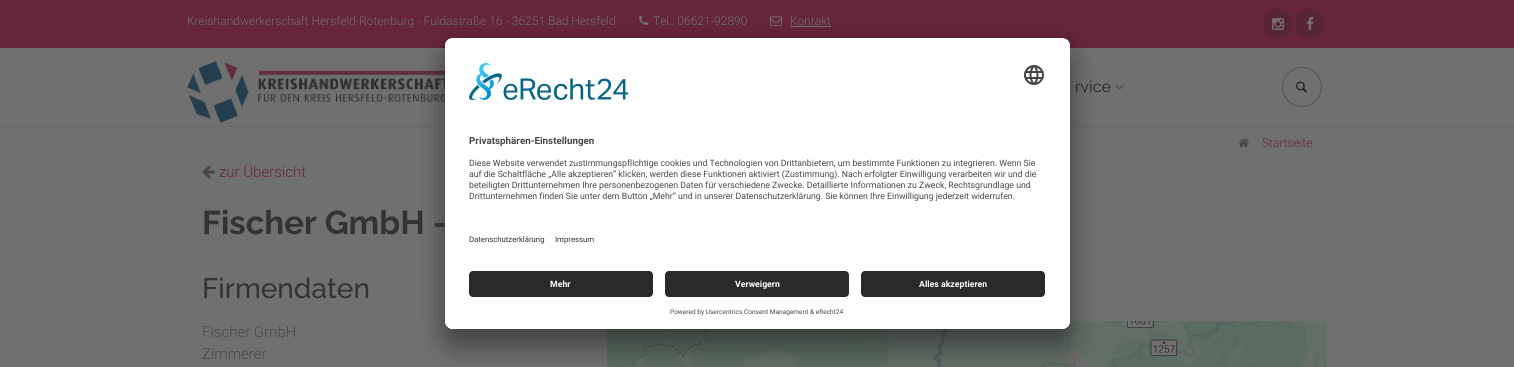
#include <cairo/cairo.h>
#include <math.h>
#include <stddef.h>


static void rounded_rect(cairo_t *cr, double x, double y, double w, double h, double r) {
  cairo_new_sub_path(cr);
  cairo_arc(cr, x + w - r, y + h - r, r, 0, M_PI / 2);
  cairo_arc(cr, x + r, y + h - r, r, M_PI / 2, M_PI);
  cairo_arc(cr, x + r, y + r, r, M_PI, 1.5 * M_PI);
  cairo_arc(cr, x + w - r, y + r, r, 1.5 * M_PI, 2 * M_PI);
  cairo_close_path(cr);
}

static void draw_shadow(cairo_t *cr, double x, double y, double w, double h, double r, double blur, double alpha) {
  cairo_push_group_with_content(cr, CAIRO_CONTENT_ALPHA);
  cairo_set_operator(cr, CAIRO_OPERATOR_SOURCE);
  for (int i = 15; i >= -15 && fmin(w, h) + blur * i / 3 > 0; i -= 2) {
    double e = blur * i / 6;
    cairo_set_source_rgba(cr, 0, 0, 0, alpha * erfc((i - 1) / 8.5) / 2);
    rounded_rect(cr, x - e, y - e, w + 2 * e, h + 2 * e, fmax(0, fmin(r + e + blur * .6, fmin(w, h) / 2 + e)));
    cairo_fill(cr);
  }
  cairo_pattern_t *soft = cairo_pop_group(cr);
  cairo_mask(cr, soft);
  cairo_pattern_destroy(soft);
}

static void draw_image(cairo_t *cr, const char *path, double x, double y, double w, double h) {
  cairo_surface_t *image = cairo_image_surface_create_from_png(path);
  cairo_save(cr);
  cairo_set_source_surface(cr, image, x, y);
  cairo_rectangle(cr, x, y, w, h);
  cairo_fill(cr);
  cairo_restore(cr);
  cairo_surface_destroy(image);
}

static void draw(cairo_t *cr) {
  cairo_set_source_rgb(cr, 112 / 255.0, 112 / 255.0, 112 / 255.0);
  cairo_paint(cr);
  cairo_set_source_rgb(cr, 102 / 255.0, 37 / 255.0, 60 / 255.0);
  cairo_rectangle(cr, 0, 0, 1514, 48);
  cairo_fill(cr);
  draw_image(cr, "images/1.png", 639, 15, 10, 10);
  draw_image(cr, "images/2.png", 770, 16, 12, 10);
  cairo_set_source_rgb(cr, 112 / 255.0, 112 / 255.0, 112 / 255.0);
  cairo_rectangle(cr, 790, 26, 41, 1);
  cairo_fill(cr);
  cairo_set_source_rgb(cr, 89 / 255.0, 37 / 255.0, 56 / 255.0);
  cairo_arc(cr, 1278, 24, 15, 0, 2 * M_PI);
  cairo_fill(cr);
  draw_image(cr, "images/3.png", 1272, 18, 12, 12);
  cairo_arc(cr, 1310, 24, 15, 0, 2 * M_PI);
  cairo_fill(cr);
  draw_image(cr, "images/4.png", 1306, 17, 8, 13);
  cairo_set_source_rgb(cr, 108 / 255.0, 108 / 255.0, 108 / 255.0);
  cairo_rectangle(cr, 0, 125, 1514, 2);
  cairo_fill(cr);
  draw_image(cr, "images/5.png", 187, 61, 258, 62);
  draw_image(cr, "images/6.png", 1115, 85, 9, 5);
  cairo_arc(cr, 1302, 87, 19.5, 0, 2 * M_PI);
  cairo_set_source_rgb(cr, 82 / 255.0, 82 / 255.0, 82 / 255.0);
  cairo_set_line_width(cr, 1);
  cairo_stroke(cr);
  draw_image(cr, "images/7.png", 1296, 81, 11, 12);
  draw_image(cr, "images/8.png", 1238, 138, 11, 9);
  draw_image(cr, "images/9.png", 202, 165, 13, 14);
  draw_image(cr, "images/10.png", 607, 321, 720, 46);
  cairo_set_source_rgb(cr, 0, 0, 0);
  draw_shadow(cr, 445, 58, 625, 291, 8, 14, 0.3);
  draw_shadow(cr, 445, 43, 625, 291, 8, 13, 0.22);
  cairo_set_source_rgb(cr, 1, 1, 1);
  rounded_rect(cr, 445, 38, 625, 291, 8);
  cairo_fill(cr);
  cairo_save(cr);
  rounded_rect(cr, 445, 38, 625, 291, 8);
  cairo_clip(cr);
  cairo_new_path(cr);
  cairo_move_to(cr, 453, 38);
  cairo_line_to(cr, 1062, 38);
  cairo_curve_to(cr, 1066.5, 38, 1070, 41.5, 1070, 46);
  cairo_line_to(cr, 1070, 263);
  cairo_line_to(cr, 445, 263);
  cairo_line_to(cr, 445, 46);
  cairo_curve_to(cr, 445, 41.5, 448.5, 38, 453, 38);
  cairo_close_path(cr);
  cairo_clip(cr);
  cairo_rectangle(cr, 445, 39, 625, 224);
  cairo_fill(cr);
  cairo_restore(cr);
  draw_image(cr, "images/11.png", 469, 63, 159, 37);
  draw_image(cr, "images/12.png", 1024, 65, 20, 20);
  cairo_new_path(cr);
  cairo_move_to(cr, 445, 263);
  cairo_line_to(cr, 1070, 263);
  cairo_line_to(cr, 1070, 321);
  cairo_curve_to(cr, 1070, 325.5, 1066.5, 329, 1062, 329);
  cairo_line_to(cr, 453, 329);
  cairo_curve_to(cr, 448.5, 329, 445, 325.5, 445, 321);
  cairo_close_path(cr);
  cairo_fill(cr);
  cairo_set_source_rgb(cr, 41 / 255.0, 42 / 255.0, 43 / 255.0);
  rounded_rect(cr, 469, 271, 184, 26, 4);
  cairo_fill(cr);
  rounded_rect(cr, 665, 271, 184, 26, 4);
  cairo_fill(cr);
  rounded_rect(cr, 861, 271, 184, 26, 4);
  cairo_fill(cr);
  cairo_select_font_face(cr, "Roboto Light", CAIRO_FONT_SLANT_NORMAL, CAIRO_FONT_WEIGHT_NORMAL);
  cairo_set_font_size(cr, 12);
  cairo_set_source_rgb(cr, 112 / 255.0, 112 / 255.0, 112 / 255.0);
  cairo_move_to(cr, 187, 25);
  cairo_show_text(cr, "Kreishandwerkerschaft Hersfeld-Rotenburg - Fuldastraße 16 - 36251 Bad Hersfeld");
  cairo_move_to(cr, 653, 25);
  cairo_show_text(cr, "Tel.: 06621-92890");
  cairo_move_to(cr, 790, 25);
  cairo_show_text(cr, "Kontakt");
  cairo_select_font_face(cr, "Raleway", CAIRO_FONT_SLANT_NORMAL, CAIRO_FONT_WEIGHT_NORMAL);
  cairo_set_font_size(cr, 16);
  cairo_set_source_rgb(cr, 36 / 255.0, 36 / 255.0, 36 / 255.0);
  cairo_move_to(cr, 1075, 92);
  cairo_show_text(cr, "rvice");
  cairo_select_font_face(cr, "Roboto Light", CAIRO_FONT_SLANT_NORMAL, CAIRO_FONT_WEIGHT_NORMAL);
  cairo_set_font_size(cr, 12);
  cairo_set_source_rgb(cr, 102 / 255.0, 37 / 255.0, 60 / 255.0);
  cairo_move_to(cr, 1262, 147);
  cairo_show_text(cr, "Startseite");
  cairo_set_font_size(cr, 15);
  cairo_move_to(cr, 219, 177);
  cairo_show_text(cr, "zur Übersicht");
  cairo_select_font_face(cr, "Raleway", CAIRO_FONT_SLANT_NORMAL, CAIRO_FONT_WEIGHT_BOLD);
  cairo_set_font_size(cr, 33);
  cairo_set_source_rgb(cr, 51 / 255.0, 51 / 255.0, 51 / 255.0);
  cairo_move_to(cr, 202, 234);
  cairo_show_text(cr, "Fischer GmbH -");
  cairo_select_font_face(cr, "Raleway Medium", CAIRO_FONT_SLANT_NORMAL, CAIRO_FONT_WEIGHT_NORMAL);
  cairo_set_font_size(cr, 28);
  cairo_move_to(cr, 202, 298);
  cairo_show_text(cr, "Firmendaten");
  cairo_select_font_face(cr, "Roboto Light", CAIRO_FONT_SLANT_NORMAL, CAIRO_FONT_WEIGHT_NORMAL);
  cairo_set_font_size(cr, 15);
  cairo_set_source_rgb(cr, 71 / 255.0, 71 / 255.0, 71 / 255.0);
  cairo_move_to(cr, 202, 337);
  cairo_show_text(cr, "Fischer GmbH");
  cairo_move_to(cr, 202, 359);
  cairo_show_text(cr, "Zimmerer");
  cairo_select_font_face(cr, "Roboto", CAIRO_FONT_SLANT_NORMAL, CAIRO_FONT_WEIGHT_BOLD);
  cairo_set_font_size(cr, 9.8);
  cairo_move_to(cr, 469, 144);
  cairo_show_text(cr, "Privatsphären-Einstellungen");
  cairo_select_font_face(cr, "Roboto", CAIRO_FONT_SLANT_NORMAL, CAIRO_FONT_WEIGHT_NORMAL);
  cairo_set_font_size(cr, 8.75);
  cairo_move_to(cr, 469, 166);
  cairo_show_text(cr, "Diese Website verwendet zustimmungspflichtige cookies und Technologien von Drittanbietern, um bestimmte Funktionen zu integrieren. Wenn Sie");
  cairo_move_to(cr, 469, 177);
  cairo_show_text(cr, "auf die Schaltfläche „Alle akzeptieren“ klicken, werden diese Funktionen aktiviert (Zustimmung). Nach erfolgter Einwilligung verarbeiten wir und die");
  cairo_move_to(cr, 469, 188);
  cairo_show_text(cr, "beteiligten Drittunternehmen Ihre personenbezogenen Daten für verschiedene Zwecke. Detaillierte Informationen zu Zweck, Rechtsgrundlage und");
  cairo_move_to(cr, 469, 199);
  cairo_show_text(cr, "Drittunternehmen finden Sie unter dem Button „Mehr“ und in unserer Datenschutzerklärung. Sie können Ihre Einwilligung jederzeit widerrufen.");
  cairo_set_font_size(cr, 7.75);
  cairo_set_source_rgb(cr, 51 / 255.0, 51 / 255.0, 51 / 255.0);
  cairo_move_to(cr, 469, 242);
  cairo_show_text(cr, "Datenschutzerklärung");
  cairo_move_to(cr, 555, 242);
  cairo_show_text(cr, "Impressum");
  cairo_select_font_face(cr, "Roboto", CAIRO_FONT_SLANT_NORMAL, CAIRO_FONT_WEIGHT_BOLD);
  cairo_set_font_size(cr, 8.75);
  cairo_set_source_rgb(cr, 1, 1, 1);
  cairo_move_to(cr, 550, 287);
  cairo_show_text(cr, "Mehr");
  cairo_move_to(cr, 735, 287);
  cairo_show_text(cr, "Verweigern");
  cairo_move_to(cr, 919, 287);
  cairo_show_text(cr, "Alles akzeptieren");
  cairo_select_font_face(cr, "Roboto", CAIRO_FONT_SLANT_NORMAL, CAIRO_FONT_WEIGHT_NORMAL);
  cairo_set_font_size(cr, 6.55);
  cairo_set_source_rgb(cr, 71 / 255.0, 71 / 255.0, 71 / 255.0);
  cairo_move_to(cr, 670, 314);
  cairo_show_text(cr, "Powered by Usercentrics Consent Management & eRecht24");
}

int main(void) {
  cairo_surface_t *surface = cairo_image_surface_create(CAIRO_FORMAT_RGB24, 1514, 367);
  cairo_t *cr = cairo_create(surface);
  cairo_font_options_t *options = cairo_font_options_create();
  cairo_font_options_set_hint_metrics(options, CAIRO_HINT_METRICS_OFF);
  cairo_font_options_set_hint_style(options, CAIRO_HINT_STYLE_NONE);
  cairo_set_font_options(cr, options);
  cairo_set_miter_limit(cr, 4);
  draw(cr);
  cairo_surface_write_to_png(surface, "out.png");
  cairo_font_options_destroy(options);
  cairo_destroy(cr);
  cairo_surface_destroy(surface);
  return 0;
}
